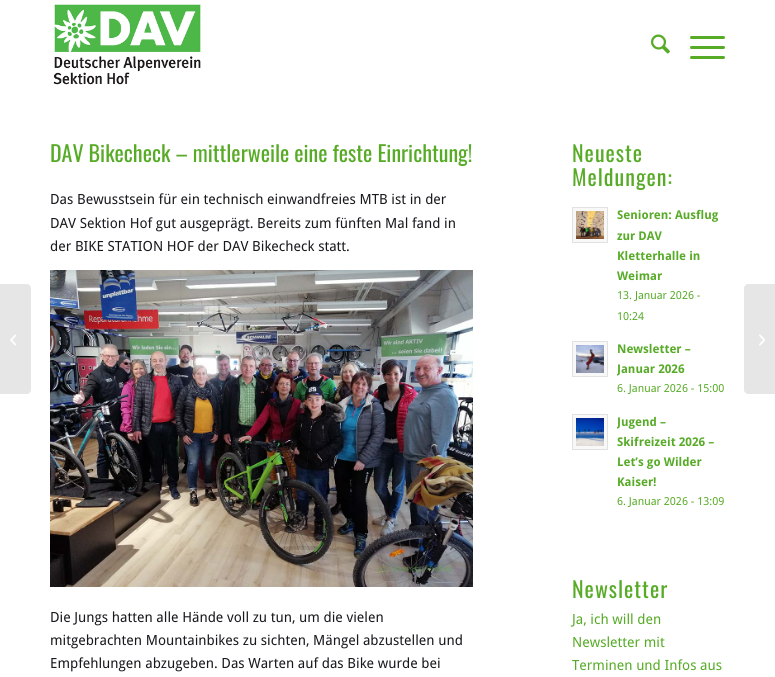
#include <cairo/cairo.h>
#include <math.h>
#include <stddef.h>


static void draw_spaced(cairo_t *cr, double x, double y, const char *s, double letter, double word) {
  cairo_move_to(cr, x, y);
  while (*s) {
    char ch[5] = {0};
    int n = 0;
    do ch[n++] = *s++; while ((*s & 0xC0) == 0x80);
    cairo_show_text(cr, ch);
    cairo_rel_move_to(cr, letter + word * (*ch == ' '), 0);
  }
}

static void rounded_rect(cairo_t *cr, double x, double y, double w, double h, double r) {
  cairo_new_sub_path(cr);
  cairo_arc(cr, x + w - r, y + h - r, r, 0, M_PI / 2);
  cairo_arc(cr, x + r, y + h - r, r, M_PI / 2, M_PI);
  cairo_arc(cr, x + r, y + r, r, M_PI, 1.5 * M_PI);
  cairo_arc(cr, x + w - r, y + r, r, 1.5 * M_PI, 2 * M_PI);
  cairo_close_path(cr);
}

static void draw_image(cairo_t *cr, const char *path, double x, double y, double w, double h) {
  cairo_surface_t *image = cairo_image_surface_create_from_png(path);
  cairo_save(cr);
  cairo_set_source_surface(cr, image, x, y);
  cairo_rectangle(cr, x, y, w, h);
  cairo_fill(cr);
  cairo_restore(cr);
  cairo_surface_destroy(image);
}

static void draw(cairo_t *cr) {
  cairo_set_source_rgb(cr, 1, 1, 1);
  cairo_paint(cr);
  draw_image(cr, "images/1.png", 53, 4, 148, 81);
  draw_image(cr, "images/2.png", 651, 34, 19, 20);
  cairo_set_source_rgb(cr, 87 / 255.0, 171 / 255.0, 39 / 255.0);
  rounded_rect(cr, 690, 46, 35, 3, 1.5);
  cairo_fill(cr);
  rounded_rect(cr, 690, 36, 35, 3, 1.5);
  cairo_fill(cr);
  rounded_rect(cr, 690, 56, 35, 3, 1.5);
  cairo_fill(cr);
  cairo_set_source_rgb(cr, 230 / 255.0, 230 / 255.0, 230 / 255.0);
  cairo_new_path(cr);
  cairo_move_to(cr, 0, 284);
  cairo_line_to(cr, 27, 284);
  cairo_curve_to(cr, 29, 284, 31, 286, 31, 288);
  cairo_line_to(cr, 31, 390);
  cairo_curve_to(cr, 31, 392, 29, 394, 27, 394);
  cairo_line_to(cr, 0, 394);
  cairo_close_path(cr);
  cairo_fill(cr);
  draw_image(cr, "images/3.png", 10, 334, 6, 12);
  draw_image(cr, "images/4.png", 50, 270, 423, 317);
  cairo_set_source_rgb(cr, 248 / 255.0, 248 / 255.0, 248 / 255.0);
  cairo_rectangle(cr, 572.5, 207.5, 35, 35);
  cairo_fill_preserve(cr);
  cairo_set_source_rgb(cr, 225 / 255.0, 225 / 255.0, 225 / 255.0);
  cairo_set_line_width(cr, 1);
  cairo_stroke(cr);
  draw_image(cr, "images/5.png", 576, 211, 28, 28);
  cairo_set_source_rgb(cr, 248 / 255.0, 248 / 255.0, 248 / 255.0);
  cairo_rectangle(cr, 572.5, 341.5, 35, 35);
  cairo_fill_preserve(cr);
  cairo_set_source_rgb(cr, 225 / 255.0, 225 / 255.0, 225 / 255.0);
  cairo_stroke(cr);
  draw_image(cr, "images/6.png", 576, 345, 28, 28);
  cairo_set_source_rgb(cr, 248 / 255.0, 248 / 255.0, 248 / 255.0);
  cairo_rectangle(cr, 572.5, 414.5, 35, 35);
  cairo_fill_preserve(cr);
  cairo_set_source_rgb(cr, 225 / 255.0, 225 / 255.0, 225 / 255.0);
  cairo_stroke(cr);
  draw_image(cr, "images/7.png", 576, 418, 28, 28);
  cairo_set_source_rgb(cr, 230 / 255.0, 230 / 255.0, 230 / 255.0);
  cairo_new_path(cr);
  cairo_move_to(cr, 748, 284);
  cairo_line_to(cr, 775, 284);
  cairo_line_to(cr, 775, 394);
  cairo_line_to(cr, 748, 394);
  cairo_curve_to(cr, 746, 394, 744, 392, 744, 390);
  cairo_line_to(cr, 744, 288);
  cairo_curve_to(cr, 744, 286, 746, 284, 748, 284);
  cairo_close_path(cr);
  cairo_fill(cr);
  draw_image(cr, "images/8.png", 759, 334, 6, 12);
  cairo_select_font_face(cr, "Oswald", CAIRO_FONT_SLANT_NORMAL, CAIRO_FONT_WEIGHT_NORMAL);
  cairo_set_font_size(cr, 22);
  cairo_set_source_rgb(cr, 87 / 255.0, 171 / 255.0, 39 / 255.0);
  cairo_move_to(cr, 50, 162);
  cairo_show_text(cr, "DAV Bikecheck – mittlerweile eine feste Einrichtung!");
  cairo_select_font_face(cr, "Droid Sans", CAIRO_FONT_SLANT_NORMAL, CAIRO_FONT_WEIGHT_NORMAL);
  cairo_set_font_size(cr, 14);
  cairo_set_source_rgb(cr, 26 / 255.0, 24 / 255.0, 29 / 255.0);
  cairo_move_to(cr, 50, 204);
  cairo_show_text(cr, "Das Bewusstsein für ein technisch einwandfreies MTB ist in der");
  cairo_move_to(cr, 50, 228);
  cairo_show_text(cr, "DAV Sektion Hof gut ausgeprägt. Bereits zum fünften Mal fand in");
  cairo_move_to(cr, 50, 251);
  cairo_show_text(cr, "der BIKE STATION HOF der DAV Bikecheck statt.");
  cairo_move_to(cr, 50, 622);
  cairo_show_text(cr, "Die Jungs hatten alle Hände voll zu tun, um die vielen");
  cairo_move_to(cr, 50, 645);
  cairo_show_text(cr, "mitgebrachten Mountainbikes zu sichten, Mängel abzustellen und");
  cairo_move_to(cr, 50, 668);
  cairo_show_text(cr, "Empfehlungen abzugeben. Das Warten auf das Bike wurde bei");
  cairo_select_font_face(cr, "Oswald", CAIRO_FONT_SLANT_NORMAL, CAIRO_FONT_WEIGHT_NORMAL);
  cairo_set_font_size(cr, 22);
  cairo_set_source_rgb(cr, 87 / 255.0, 171 / 255.0, 39 / 255.0);
  draw_spaced(cr, 572, 162, "Neueste", 1, 0);
  draw_spaced(cr, 572, 186, "Meldungen:", 1, 0);
  cairo_select_font_face(cr, "Droid Sans", CAIRO_FONT_SLANT_NORMAL, CAIRO_FONT_WEIGHT_BOLD);
  cairo_set_font_size(cr, 12);
  cairo_move_to(cr, 617, 219);
  cairo_show_text(cr, "Senioren: Ausflug");
  cairo_move_to(cr, 617, 240);
  cairo_show_text(cr, "zur DAV");
  cairo_move_to(cr, 617, 260);
  cairo_show_text(cr, "Kletterhalle in");
  cairo_move_to(cr, 617, 280);
  cairo_show_text(cr, "Weimar");
  cairo_select_font_face(cr, "Droid Sans", CAIRO_FONT_SLANT_NORMAL, CAIRO_FONT_WEIGHT_NORMAL);
  cairo_set_font_size(cr, 11);
  cairo_move_to(cr, 617, 299);
  cairo_show_text(cr, "13. Januar 2026 -");
  cairo_move_to(cr, 617, 320);
  cairo_show_text(cr, "10:24");
  cairo_select_font_face(cr, "Droid Sans", CAIRO_FONT_SLANT_NORMAL, CAIRO_FONT_WEIGHT_BOLD);
  cairo_set_font_size(cr, 12);
  cairo_move_to(cr, 617, 353);
  cairo_show_text(cr, "Newsletter –");
  cairo_save(cr);
  cairo_rectangle(cr, 617, 339, 108, 61);
  cairo_clip(cr);
  cairo_move_to(cr, 617, 373);
  cairo_show_text(cr, "Januar 2026");
  cairo_restore(cr);
  cairo_select_font_face(cr, "Droid Sans", CAIRO_FONT_SLANT_NORMAL, CAIRO_FONT_WEIGHT_NORMAL);
  cairo_set_font_size(cr, 11);
  cairo_move_to(cr, 617, 392);
  cairo_show_text(cr, "6. Januar 2026 - 15:00");
  cairo_save(cr);
  cairo_rectangle(cr, 617, 412, 108, 101);
  cairo_clip(cr);
  cairo_select_font_face(cr, "Droid Sans", CAIRO_FONT_SLANT_NORMAL, CAIRO_FONT_WEIGHT_BOLD);
  cairo_set_font_size(cr, 12);
  cairo_move_to(cr, 617, 426);
  cairo_show_text(cr, "Jugend –");
  cairo_restore(cr);
  cairo_select_font_face(cr, "Droid Sans", CAIRO_FONT_SLANT_NORMAL, CAIRO_FONT_WEIGHT_BOLD);
  cairo_set_font_size(cr, 12);
  cairo_move_to(cr, 617, 446);
  cairo_show_text(cr, "Skifreizeit 2026 –");
  cairo_move_to(cr, 617, 466);
  cairo_show_text(cr, "Let’s go Wilder");
  cairo_move_to(cr, 617, 486);
  cairo_show_text(cr, "Kaiser!");
  cairo_select_font_face(cr, "Droid Sans", CAIRO_FONT_SLANT_NORMAL, CAIRO_FONT_WEIGHT_NORMAL);
  cairo_set_font_size(cr, 11);
  cairo_move_to(cr, 617, 505);
  cairo_show_text(cr, "6. Januar 2026 - 13:09");
  cairo_select_font_face(cr, "Oswald", CAIRO_FONT_SLANT_NORMAL, CAIRO_FONT_WEIGHT_NORMAL);
  cairo_set_font_size(cr, 22);
  draw_spaced(cr, 572, 598, "Newsletter", 1, 0);
  cairo_select_font_face(cr, "Droid Sans", CAIRO_FONT_SLANT_NORMAL, CAIRO_FONT_WEIGHT_NORMAL);
  cairo_set_font_size(cr, 14);
  cairo_move_to(cr, 572, 624);
  cairo_show_text(cr, "Ja, ich will den");
  cairo_move_to(cr, 572, 647);
  cairo_show_text(cr, "Newsletter mit");
  cairo_move_to(cr, 572, 670);
  cairo_show_text(cr, "Terminen und Infos aus");
}

int main(void) {
  cairo_surface_t *surface = cairo_image_surface_create(CAIRO_FORMAT_RGB24, 775, 677);
  cairo_t *cr = cairo_create(surface);
  cairo_font_options_t *options = cairo_font_options_create();
  cairo_font_options_set_hint_metrics(options, CAIRO_HINT_METRICS_OFF);
  cairo_font_options_set_hint_style(options, CAIRO_HINT_STYLE_NONE);
  cairo_set_font_options(cr, options);
  cairo_set_miter_limit(cr, 4);
  draw(cr);
  cairo_surface_write_to_png(surface, "out.png");
  cairo_font_options_destroy(options);
  cairo_destroy(cr);
  cairo_surface_destroy(surface);
  return 0;
}
